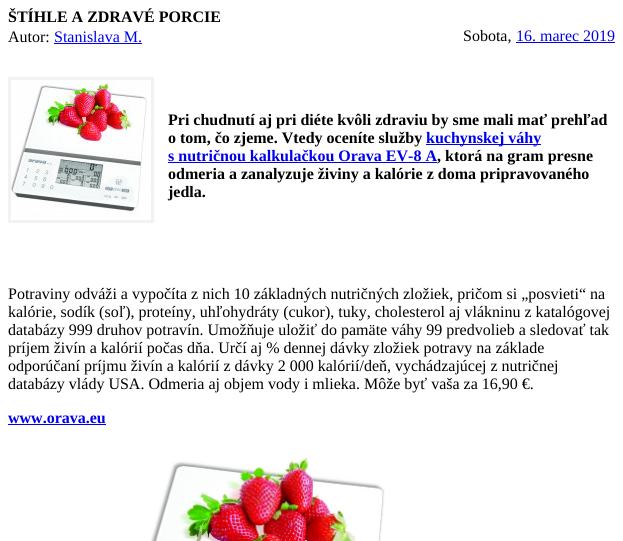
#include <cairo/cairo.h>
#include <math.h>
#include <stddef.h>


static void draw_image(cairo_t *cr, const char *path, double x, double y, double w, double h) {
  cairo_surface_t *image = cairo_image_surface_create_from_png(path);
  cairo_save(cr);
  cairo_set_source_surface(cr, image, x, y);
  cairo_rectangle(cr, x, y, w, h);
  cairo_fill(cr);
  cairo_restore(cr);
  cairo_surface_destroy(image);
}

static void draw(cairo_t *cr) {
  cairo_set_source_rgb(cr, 1, 1, 1);
  cairo_paint(cr);
  cairo_set_source_rgb(cr, 0, 0, 238 / 255.0);
  cairo_rectangle(cr, 54, 43, 88, 1);
  cairo_fill(cr);
  cairo_rectangle(cr, 516, 42, 99, 1);
  cairo_fill(cr);
  cairo_rectangle(cr, 9.5, 78.5, 143, 143);
  cairo_set_source_rgb(cr, 242 / 255.0, 242 / 255.0, 241 / 255.0);
  cairo_set_line_width(cr, 3);
  cairo_stroke(cr);
  draw_image(cr, "images/1.png", 11, 80, 136, 136);
  cairo_set_source_rgb(cr, 0, 0, 238 / 255.0);
  cairo_rectangle(cr, 426, 144, 115, 1);
  cairo_fill(cr);
  cairo_rectangle(cr, 168, 162, 269, 1);
  cairo_fill(cr);
  cairo_rectangle(cr, 8, 424, 98, 1);
  cairo_fill(cr);
  draw_image(cr, "images/2.png", 150, 457, 235, 84);
  cairo_select_font_face(cr, "Liberation Serif", CAIRO_FONT_SLANT_NORMAL, CAIRO_FONT_WEIGHT_BOLD);
  cairo_set_font_size(cr, 16);
  cairo_set_source_rgb(cr, 0, 0, 0);
  cairo_move_to(cr, 8, 22);
  cairo_show_text(cr, "ŠTÍHLE A ZDRAVÉ PORCIE");
  cairo_select_font_face(cr, "Liberation Serif", CAIRO_FONT_SLANT_NORMAL, CAIRO_FONT_WEIGHT_NORMAL);
  cairo_move_to(cr, 8, 42);
  cairo_show_text(cr, "Autor:");
  cairo_set_source_rgb(cr, 0, 0, 238 / 255.0);
  cairo_move_to(cr, 54, 42);
  cairo_show_text(cr, "Stanislava M.");
  cairo_set_source_rgb(cr, 0, 0, 0);
  cairo_move_to(cr, 463, 41);
  cairo_show_text(cr, "Sobota,");
  cairo_set_source_rgb(cr, 0, 0, 238 / 255.0);
  cairo_move_to(cr, 516, 41);
  cairo_show_text(cr, "16. marec 2019");
  cairo_select_font_face(cr, "Liberation Serif", CAIRO_FONT_SLANT_NORMAL, CAIRO_FONT_WEIGHT_BOLD);
  cairo_set_source_rgb(cr, 0, 0, 0);
  cairo_move_to(cr, 168, 125);
  cairo_show_text(cr, "Pri chudnutí aj pri diéte kvôli zdraviu by sme mali mať prehľad");
  cairo_move_to(cr, 168, 143);
  cairo_show_text(cr, "o tom, čo zjeme. Vtedy oceníte služby");
  cairo_set_source_rgb(cr, 0, 0, 238 / 255.0);
  cairo_move_to(cr, 426, 143);
  cairo_show_text(cr, "kuchynskej váhy");
  cairo_move_to(cr, 168, 161);
  cairo_show_text(cr, "s nutričnou kalkulačkou Orava EV-8 A");
  cairo_set_source_rgb(cr, 0, 0, 0);
  cairo_move_to(cr, 437, 161);
  cairo_show_text(cr, ", ktorá na gram presne");
  cairo_move_to(cr, 168, 179);
  cairo_show_text(cr, "odmeria a zanalyzuje živiny a kalórie z doma pripravovaného");
  cairo_move_to(cr, 168, 197);
  cairo_show_text(cr, "jedla.");
  cairo_select_font_face(cr, "Liberation Serif", CAIRO_FONT_SLANT_NORMAL, CAIRO_FONT_WEIGHT_NORMAL);
  cairo_move_to(cr, 8, 299);
  cairo_show_text(cr, "Potraviny odváži a vypočíta z nich 10 základných nutričných zložiek, pričom si „posvieti“ na");
  cairo_move_to(cr, 8, 317);
  cairo_show_text(cr, "kalórie, sodík (soľ), proteíny, uhľohydráty (cukor), tuky, cholesterol aj vlákninu z katalógovej");
  cairo_move_to(cr, 8, 335);
  cairo_show_text(cr, "databázy 999 druhov potravín. Umožňuje uložiť do pamäte váhy 99 predvolieb a sledovať tak");
  cairo_move_to(cr, 8, 353);
  cairo_show_text(cr, "príjem živín a kalórií počas dňa. Určí aj % dennej dávky zložiek potravy na základe");
  cairo_move_to(cr, 8, 371);
  cairo_show_text(cr, "odporúčaní príjmu živín a kalórií z dávky 2 000 kalórií/deň, vychádzajúcej z nutričnej");
  cairo_move_to(cr, 8, 389);
  cairo_show_text(cr, "databázy vlády USA. Odmeria aj objem vody i mlieka. Môže byť vaša za 16,90 €.");
  cairo_select_font_face(cr, "Liberation Serif", CAIRO_FONT_SLANT_NORMAL, CAIRO_FONT_WEIGHT_BOLD);
  cairo_set_source_rgb(cr, 0, 0, 238 / 255.0);
  cairo_move_to(cr, 8, 423);
  cairo_show_text(cr, "www.orava.eu");
}

int main(void) {
  cairo_surface_t *surface = cairo_image_surface_create(CAIRO_FORMAT_RGB24, 623, 541);
  cairo_t *cr = cairo_create(surface);
  cairo_font_options_t *options = cairo_font_options_create();
  cairo_font_options_set_hint_metrics(options, CAIRO_HINT_METRICS_OFF);
  cairo_font_options_set_hint_style(options, CAIRO_HINT_STYLE_NONE);
  cairo_set_font_options(cr, options);
  cairo_set_miter_limit(cr, 4);
  draw(cr);
  cairo_surface_write_to_png(surface, "out.png");
  cairo_font_options_destroy(options);
  cairo_destroy(cr);
  cairo_surface_destroy(surface);
  return 0;
}
